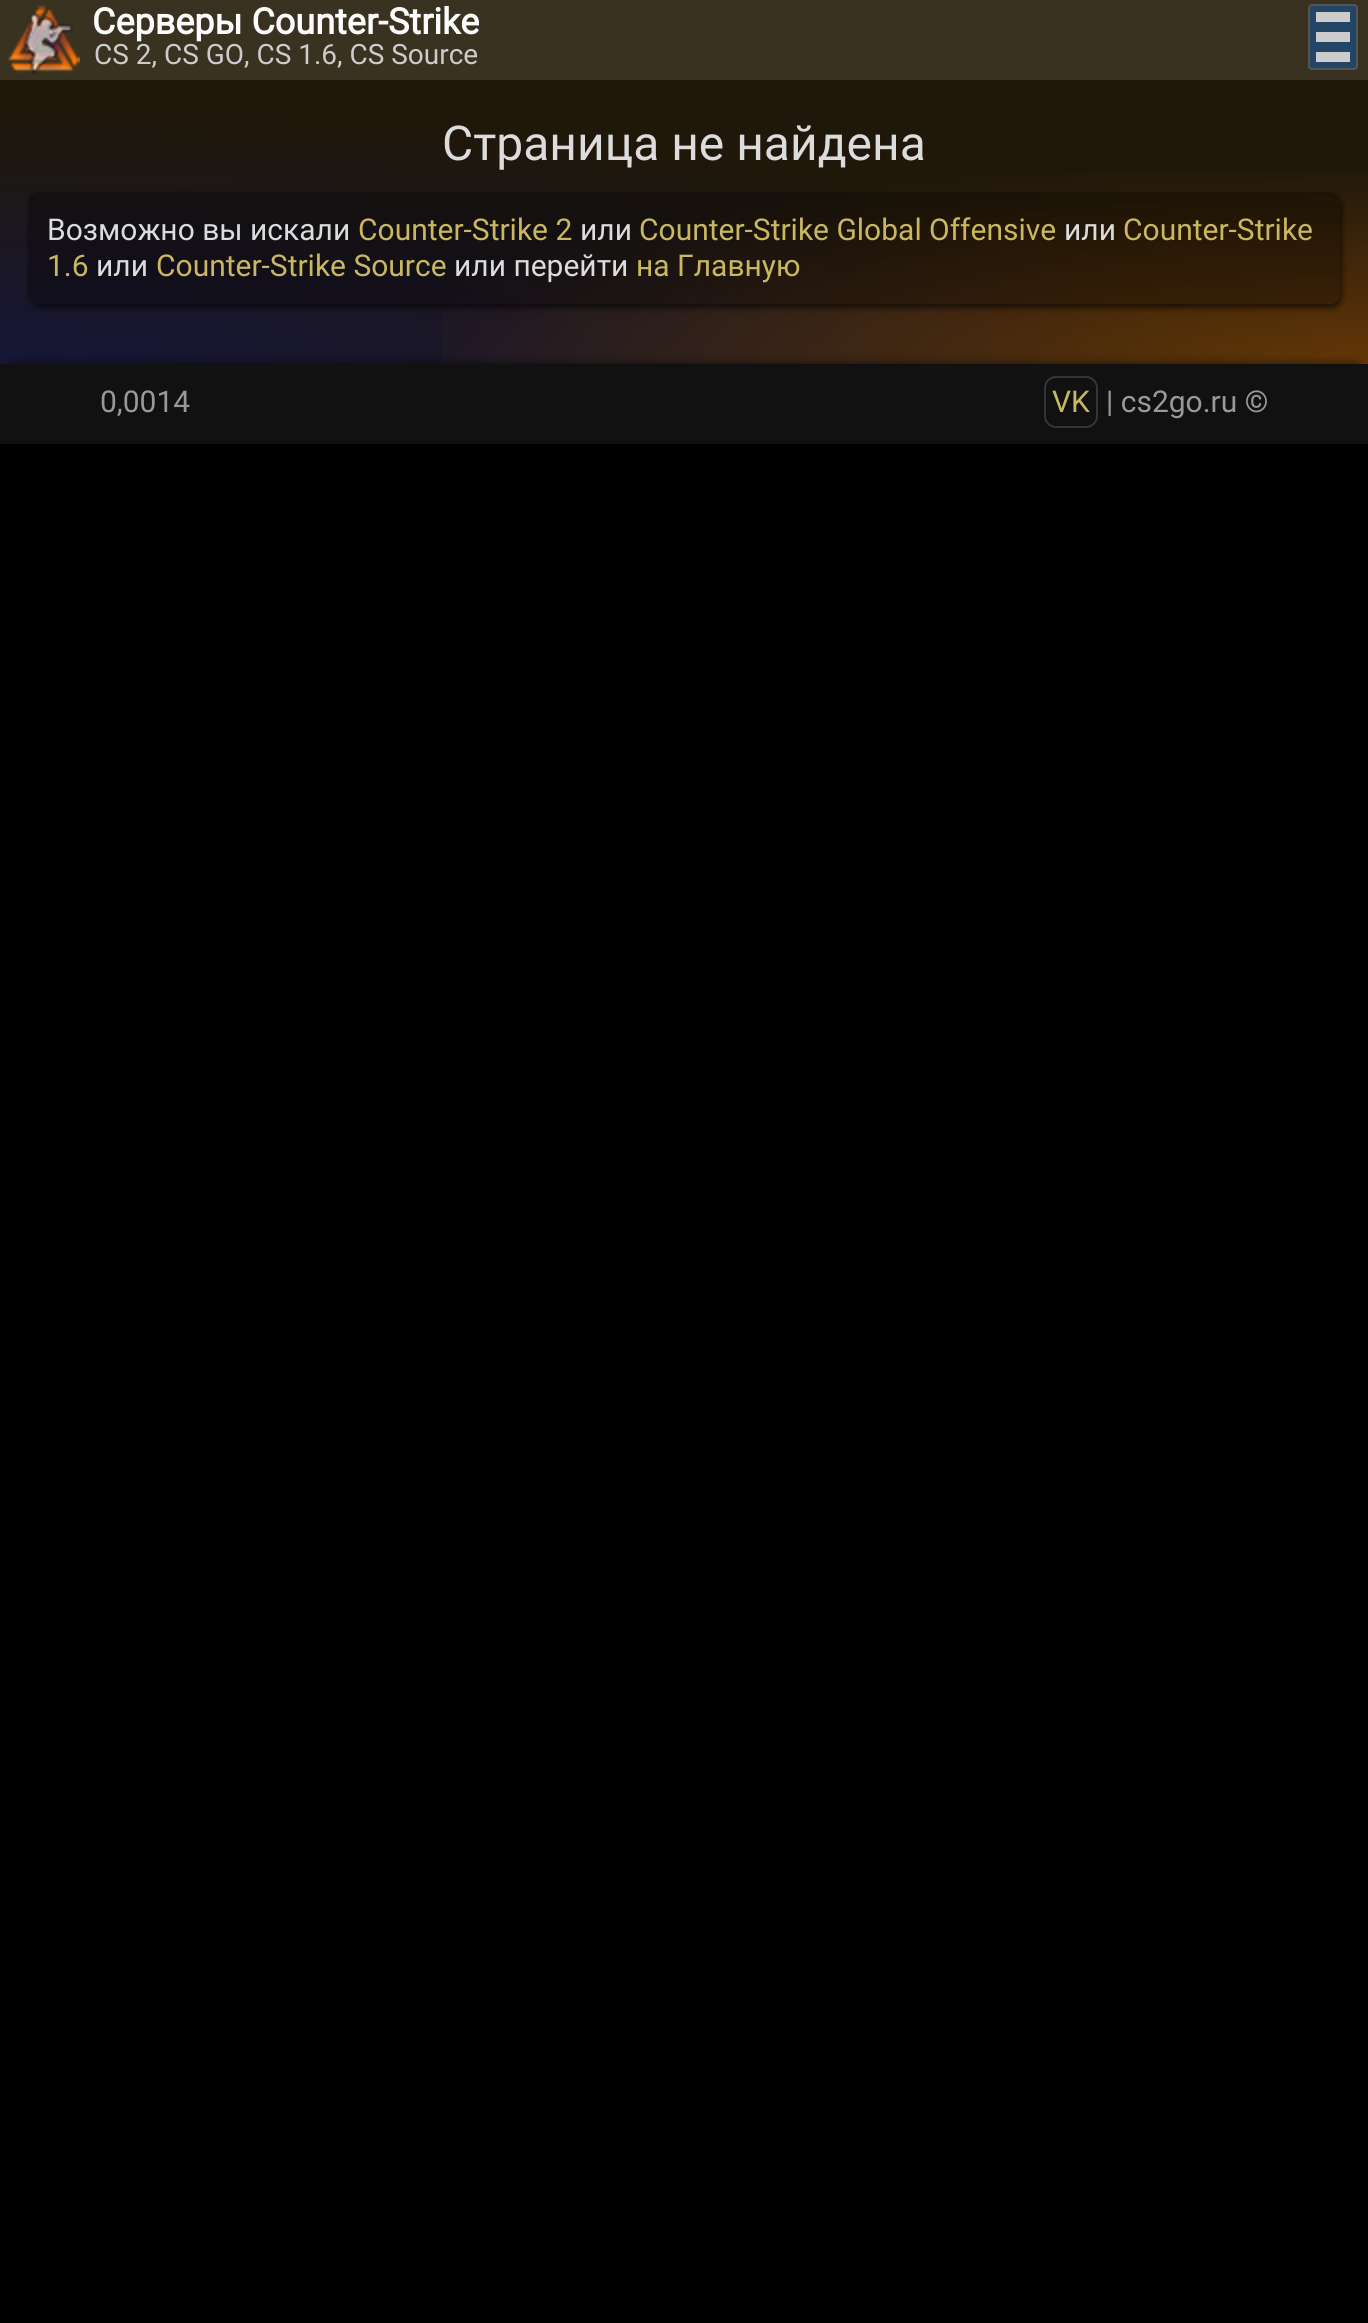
#include <cairo/cairo.h>
#include <math.h>
#include <stddef.h>


static void rounded_rect(cairo_t *cr, double x, double y, double w, double h, double r) {
  cairo_new_sub_path(cr);
  cairo_arc(cr, x + w - r, y + h - r, r, 0, M_PI / 2);
  cairo_arc(cr, x + r, y + h - r, r, M_PI / 2, M_PI);
  cairo_arc(cr, x + r, y + r, r, M_PI, 1.5 * M_PI);
  cairo_arc(cr, x + w - r, y + r, r, 1.5 * M_PI, 2 * M_PI);
  cairo_close_path(cr);
}

static void draw_shadow(cairo_t *cr, double x, double y, double w, double h, double r, double blur, double alpha) {
  cairo_push_group_with_content(cr, CAIRO_CONTENT_ALPHA);
  cairo_set_operator(cr, CAIRO_OPERATOR_SOURCE);
  for (int i = 15; i >= -15 && fmin(w, h) + blur * i / 3 > 0; i -= 2) {
    double e = blur * i / 6;
    cairo_set_source_rgba(cr, 0, 0, 0, alpha * erfc((i - 1) / 8.5) / 2);
    rounded_rect(cr, x - e, y - e, w + 2 * e, h + 2 * e, fmax(0, fmin(r + e + blur * .6, fmin(w, h) / 2 + e)));
    cairo_fill(cr);
  }
  cairo_pattern_t *soft = cairo_pop_group(cr);
  cairo_mask(cr, soft);
  cairo_pattern_destroy(soft);
}

static void draw_image(cairo_t *cr, const char *path, double x, double y, double w, double h) {
  cairo_surface_t *image = cairo_image_surface_create_from_png(path);
  cairo_save(cr);
  cairo_set_source_surface(cr, image, x, y);
  cairo_rectangle(cr, x, y, w, h);
  cairo_fill(cr);
  cairo_restore(cr);
  cairo_surface_destroy(image);
}

static void draw(cairo_t *cr) {
  cairo_pattern_t *gradient;
  cairo_set_source_rgb(cr, 0, 0, 0);
  cairo_paint(cr);
  cairo_set_source_rgb(cr, 57 / 255.0, 50 / 255.0, 33 / 255.0);
  cairo_rectangle(cr, 0, 0, 1368, 80);
  cairo_fill(cr);
  draw_image(cr, "images/1.png", 8, 5, 72, 70);
  cairo_set_source_rgb(cr, 35 / 255.0, 69 / 255.0, 102 / 255.0);
  rounded_rect(cr, 1309, 5, 48, 64, 3);
  cairo_fill_preserve(cr);
  cairo_set_source_rgb(cr, 85 / 255.0, 85 / 255.0, 85 / 255.0);
  cairo_stroke(cr);
  cairo_set_source_rgb(cr, 204 / 255.0, 204 / 255.0, 204 / 255.0);
  cairo_rectangle(cr, 1316, 12, 34, 10);
  cairo_fill(cr);
  cairo_rectangle(cr, 1316, 32, 34, 10);
  cairo_fill(cr);
  cairo_rectangle(cr, 1316, 52, 34, 10);
  cairo_fill(cr);
  gradient = cairo_pattern_create_radial(0, 0, 0, 0, 0, 1);
  cairo_pattern_set_matrix(gradient, &(cairo_matrix_t){1.0 / 1935, 0, 0, 1.0 / 402, -1.0 * 0 / 1935, -1.0 * 364 / 402});
  cairo_pattern_add_color_stop_rgba(gradient, 0, 22 / 255.0, 22 / 255.0, 56 / 255.0, 1);
  cairo_pattern_add_color_stop_rgba(gradient, 0.62, 31 / 255.0, 23 / 255.0, 10 / 255.0, 1);
  cairo_set_source(cr, gradient);
  cairo_pattern_destroy(gradient);
  cairo_rectangle(cr, 0, 80, 1368, 284);
  cairo_fill(cr);
  gradient = cairo_pattern_create_radial(0, 0, 0, 0, 0, 1);
  cairo_pattern_set_matrix(gradient, &(cairo_matrix_t){1.0 / 1368, 0, 0, 1.0 / 284, -1.0 * 1368 / 1368, -1.0 * 364 / 284});
  cairo_pattern_add_color_stop_rgba(gradient, 0, 1, 127 / 255.0, 0, 0.3);
  cairo_pattern_add_color_stop_rgba(gradient, 0.73, 1, 127 / 255.0, 0, 0);
  cairo_set_source(cr, gradient);
  cairo_pattern_destroy(gradient);
  cairo_rectangle(cr, 442, 172, 926, 192);
  cairo_fill(cr);
  cairo_save(cr);
  cairo_set_fill_rule(cr, CAIRO_FILL_RULE_EVEN_ODD);
  cairo_new_path(cr);
  cairo_move_to(cr, 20, 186);
  cairo_line_to(cr, 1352, 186);
  cairo_line_to(cr, 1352, 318);
  cairo_line_to(cr, 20, 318);
  cairo_close_path(cr);
  cairo_move_to(cr, 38, 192);
  cairo_line_to(cr, 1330, 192);
  cairo_curve_to(cr, 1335.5, 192, 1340, 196.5, 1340, 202);
  cairo_line_to(cr, 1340, 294);
  cairo_curve_to(cr, 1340, 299.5, 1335.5, 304, 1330, 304);
  cairo_line_to(cr, 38, 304);
  cairo_curve_to(cr, 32.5, 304, 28, 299.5, 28, 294);
  cairo_line_to(cr, 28, 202);
  cairo_curve_to(cr, 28, 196.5, 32.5, 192, 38, 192);
  cairo_close_path(cr);
  cairo_clip(cr);
  cairo_set_source_rgb(cr, 0, 0, 0);
  draw_shadow(cr, 30, 196, 1312, 112, 10, 3, 0.6);
  cairo_restore(cr);
  cairo_set_source_rgba(cr, 0, 0, 0, 0.3);
  rounded_rect(cr, 28, 192, 1312, 112, 10);
  cairo_fill(cr);
  cairo_set_source_rgb(cr, 0, 0, 0);
  draw_shadow(cr, 10, 364, 1348, 60, 0, 5, 0.6);
  cairo_set_source_rgb(cr, 17 / 255.0, 17 / 255.0, 17 / 255.0);
  cairo_rectangle(cr, 0, 364, 1368, 80);
  cairo_fill(cr);
  rounded_rect(cr, 1045, 377, 52, 50, 11);
  cairo_set_source_rgb(cr, 53 / 255.0, 53 / 255.0, 53 / 255.0);
  cairo_stroke(cr);
  cairo_select_font_face(cr, "Roboto", CAIRO_FONT_SLANT_NORMAL, CAIRO_FONT_WEIGHT_BOLD);
  cairo_set_font_size(cr, 36);
  cairo_set_source_rgb(cr, 252 / 255.0, 252 / 255.0, 252 / 255.0);
  cairo_move_to(cr, 92, 34);
  cairo_show_text(cr, "Серверы Counter-Strike");
  cairo_select_font_face(cr, "Roboto", CAIRO_FONT_SLANT_NORMAL, CAIRO_FONT_WEIGHT_NORMAL);
  cairo_set_font_size(cr, 28);
  cairo_set_source_rgb(cr, 204 / 255.0, 204 / 255.0, 204 / 255.0);
  cairo_move_to(cr, 94, 64);
  cairo_show_text(cr, "CS 2, CS GO, CS 1.6, CS Source");
  cairo_set_font_size(cr, 48);
  cairo_set_source_rgb(cr, 220 / 255.0, 220 / 255.0, 220 / 255.0);
  cairo_move_to(cr, 442, 160);
  cairo_show_text(cr, "Страница не найдена");
  cairo_set_font_size(cr, 30);
  cairo_move_to(cr, 47, 240);
  cairo_show_text(cr, "Возможно вы искали");
  cairo_set_source_rgb(cr, 201 / 255.0, 184 / 255.0, 95 / 255.0);
  cairo_move_to(cr, 358, 240);
  cairo_show_text(cr, "Counter-Strike 2");
  cairo_set_source_rgb(cr, 220 / 255.0, 220 / 255.0, 220 / 255.0);
  cairo_move_to(cr, 580, 240);
  cairo_show_text(cr, "или");
  cairo_set_source_rgb(cr, 201 / 255.0, 184 / 255.0, 95 / 255.0);
  cairo_move_to(cr, 639, 240);
  cairo_show_text(cr, "Counter-Strike Global Offensive");
  cairo_set_source_rgb(cr, 220 / 255.0, 220 / 255.0, 220 / 255.0);
  cairo_move_to(cr, 1064, 240);
  cairo_show_text(cr, "или");
  cairo_set_source_rgb(cr, 201 / 255.0, 184 / 255.0, 95 / 255.0);
  cairo_move_to(cr, 1123, 240);
  cairo_show_text(cr, "Counter-Strike");
  cairo_move_to(cr, 47, 276);
  cairo_show_text(cr, "1.6");
  cairo_set_source_rgb(cr, 220 / 255.0, 220 / 255.0, 220 / 255.0);
  cairo_move_to(cr, 96, 276);
  cairo_show_text(cr, "или");
  cairo_set_source_rgb(cr, 201 / 255.0, 184 / 255.0, 95 / 255.0);
  cairo_move_to(cr, 156, 276);
  cairo_show_text(cr, "Counter-Strike Source");
  cairo_set_source_rgb(cr, 220 / 255.0, 220 / 255.0, 220 / 255.0);
  cairo_move_to(cr, 454, 276);
  cairo_show_text(cr, "или перейти");
  cairo_set_source_rgb(cr, 201 / 255.0, 184 / 255.0, 95 / 255.0);
  cairo_move_to(cr, 636, 276);
  cairo_show_text(cr, "на Главную");
  cairo_set_source_rgb(cr, 153 / 255.0, 153 / 255.0, 153 / 255.0);
  cairo_move_to(cr, 100, 412);
  cairo_show_text(cr, "0,0014");
  cairo_set_source_rgb(cr, 201 / 255.0, 184 / 255.0, 95 / 255.0);
  cairo_move_to(cr, 1052, 412);
  cairo_show_text(cr, "VK");
  cairo_set_source_rgb(cr, 153 / 255.0, 153 / 255.0, 153 / 255.0);
  cairo_move_to(cr, 1106, 412);
  cairo_show_text(cr, "| cs2go.ru ©");
}

int main(void) {
  cairo_surface_t *surface = cairo_image_surface_create(CAIRO_FORMAT_RGB24, 1368, 2323);
  cairo_t *cr = cairo_create(surface);
  cairo_font_options_t *options = cairo_font_options_create();
  cairo_font_options_set_hint_metrics(options, CAIRO_HINT_METRICS_OFF);
  cairo_font_options_set_hint_style(options, CAIRO_HINT_STYLE_NONE);
  cairo_set_font_options(cr, options);
  cairo_set_miter_limit(cr, 4);
  draw(cr);
  cairo_surface_write_to_png(surface, "out.png");
  cairo_font_options_destroy(options);
  cairo_destroy(cr);
  cairo_surface_destroy(surface);
  return 0;
}
